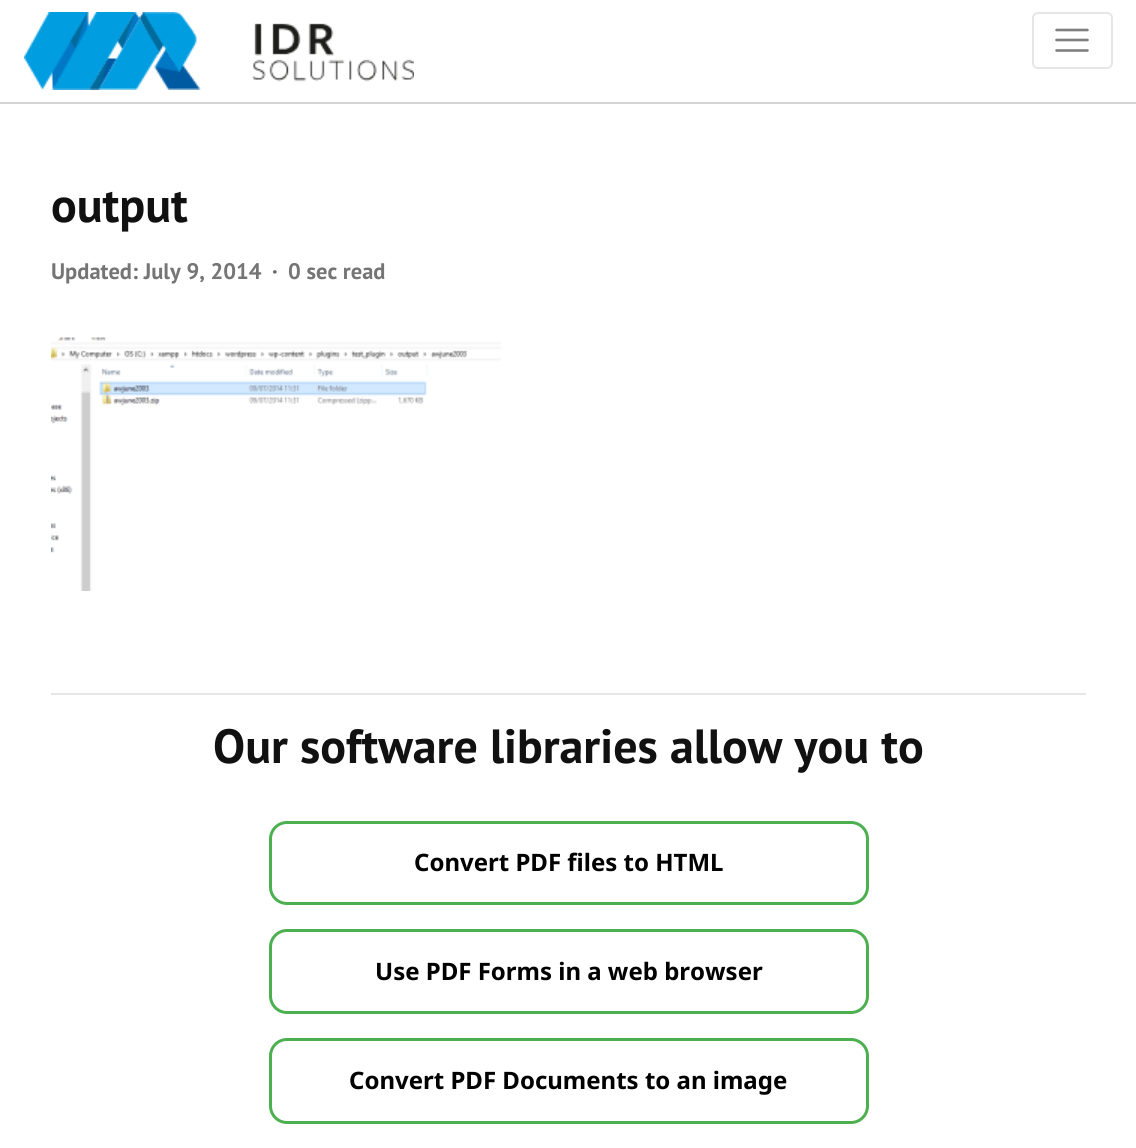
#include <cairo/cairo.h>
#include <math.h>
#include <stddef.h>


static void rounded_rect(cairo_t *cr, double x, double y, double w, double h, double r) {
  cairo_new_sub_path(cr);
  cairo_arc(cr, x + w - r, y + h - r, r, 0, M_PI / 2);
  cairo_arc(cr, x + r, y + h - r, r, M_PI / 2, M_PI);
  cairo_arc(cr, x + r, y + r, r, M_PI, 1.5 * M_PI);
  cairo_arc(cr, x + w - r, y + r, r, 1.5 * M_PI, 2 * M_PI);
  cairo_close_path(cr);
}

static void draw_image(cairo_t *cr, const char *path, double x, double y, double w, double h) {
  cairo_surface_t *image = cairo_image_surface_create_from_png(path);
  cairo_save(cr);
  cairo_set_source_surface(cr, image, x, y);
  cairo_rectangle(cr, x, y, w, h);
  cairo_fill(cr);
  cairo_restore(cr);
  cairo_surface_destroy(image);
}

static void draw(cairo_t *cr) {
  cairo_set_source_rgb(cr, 1, 1, 1);
  cairo_paint(cr);
  cairo_set_source_rgb(cr, 211 / 255.0, 211 / 255.0, 211 / 255.0);
  cairo_rectangle(cr, 0, 102, 1136, 2);
  cairo_fill(cr);
  draw_image(cr, "images/1.png", 24, 12, 390, 78);
  rounded_rect(cr, 1033, 13, 79, 55, 5);
  cairo_set_source_rgb(cr, 230 / 255.0, 230 / 255.0, 230 / 255.0);
  cairo_stroke(cr);
  cairo_new_path(cr);
  cairo_move_to(cr, 1056.5, 30);
  cairo_line_to(cr, 1087.5, 30);
  cairo_move_to(cr, 1056.5, 40);
  cairo_line_to(cr, 1087.5, 40);
  cairo_move_to(cr, 1056.5, 50.5);
  cairo_line_to(cr, 1087.5, 50.5);
  cairo_set_source_rgb(cr, 128 / 255.0, 128 / 255.0, 128 / 255.0);
  cairo_set_line_width(cr, 2.6);
  cairo_set_line_cap(cr, CAIRO_LINE_CAP_ROUND);
  cairo_stroke(cr);
  draw_image(cr, "images/2.png", 51, 337, 450, 254);
  cairo_set_source_rgb(cr, 230 / 255.0, 230 / 255.0, 230 / 255.0);
  cairo_rectangle(cr, 51, 693, 1035, 2);
  cairo_fill(cr);
  rounded_rect(cr, 270.5, 822.5, 597, 81, 16.5);
  cairo_set_source_rgb(cr, 76 / 255.0, 175 / 255.0, 80 / 255.0);
  cairo_set_line_width(cr, 3);
  cairo_set_line_cap(cr, CAIRO_LINE_CAP_BUTT);
  cairo_stroke(cr);
  rounded_rect(cr, 270.5, 930.5, 597, 82, 16.5);
  cairo_stroke(cr);
  rounded_rect(cr, 270.5, 1039.5, 597, 83, 16.5);
  cairo_stroke(cr);
  cairo_select_font_face(cr, "PT Sans", CAIRO_FONT_SLANT_NORMAL, CAIRO_FONT_WEIGHT_BOLD);
  cairo_set_font_size(cr, 48);
  cairo_set_source_rgb(cr, 17 / 255.0, 17 / 255.0, 17 / 255.0);
  cairo_move_to(cr, 51, 222);
  cairo_show_text(cr, "output");
  cairo_set_font_size(cr, 22.5);
  cairo_set_source_rgb(cr, 117 / 255.0, 117 / 255.0, 117 / 255.0);
  cairo_move_to(cr, 51, 279);
  cairo_show_text(cr, "Updated: July 9, 2014");
  cairo_set_source_rgb(cr, 102 / 255.0, 102 / 255.0, 102 / 255.0);
  cairo_move_to(cr, 272, 279);
  cairo_show_text(cr, "·");
  cairo_set_source_rgb(cr, 117 / 255.0, 117 / 255.0, 117 / 255.0);
  cairo_move_to(cr, 288, 279);
  cairo_show_text(cr, "0 sec read");
  cairo_set_font_size(cr, 48);
  cairo_set_source_rgb(cr, 17 / 255.0, 17 / 255.0, 17 / 255.0);
  cairo_move_to(cr, 213, 763);
  cairo_show_text(cr, "Our software libraries allow you to");
  cairo_select_font_face(cr, "Noto Sans", CAIRO_FONT_SLANT_NORMAL, CAIRO_FONT_WEIGHT_BOLD);
  cairo_set_font_size(cr, 24);
  cairo_set_source_rgb(cr, 0, 0, 0);
  cairo_move_to(cr, 414, 871);
  cairo_show_text(cr, "Convert PDF files to HTML");
  cairo_move_to(cr, 375, 980);
  cairo_show_text(cr, "Use PDF Forms in a web browser");
  cairo_move_to(cr, 349, 1089);
  cairo_show_text(cr, "Convert PDF Documents to an image");
}

int main(void) {
  cairo_surface_t *surface = cairo_image_surface_create(CAIRO_FORMAT_RGB24, 1136, 1148);
  cairo_t *cr = cairo_create(surface);
  cairo_font_options_t *options = cairo_font_options_create();
  cairo_font_options_set_hint_metrics(options, CAIRO_HINT_METRICS_OFF);
  cairo_font_options_set_hint_style(options, CAIRO_HINT_STYLE_NONE);
  cairo_set_font_options(cr, options);
  cairo_set_miter_limit(cr, 4);
  draw(cr);
  cairo_surface_write_to_png(surface, "out.png");
  cairo_font_options_destroy(options);
  cairo_destroy(cr);
  cairo_surface_destroy(surface);
  return 0;
}
